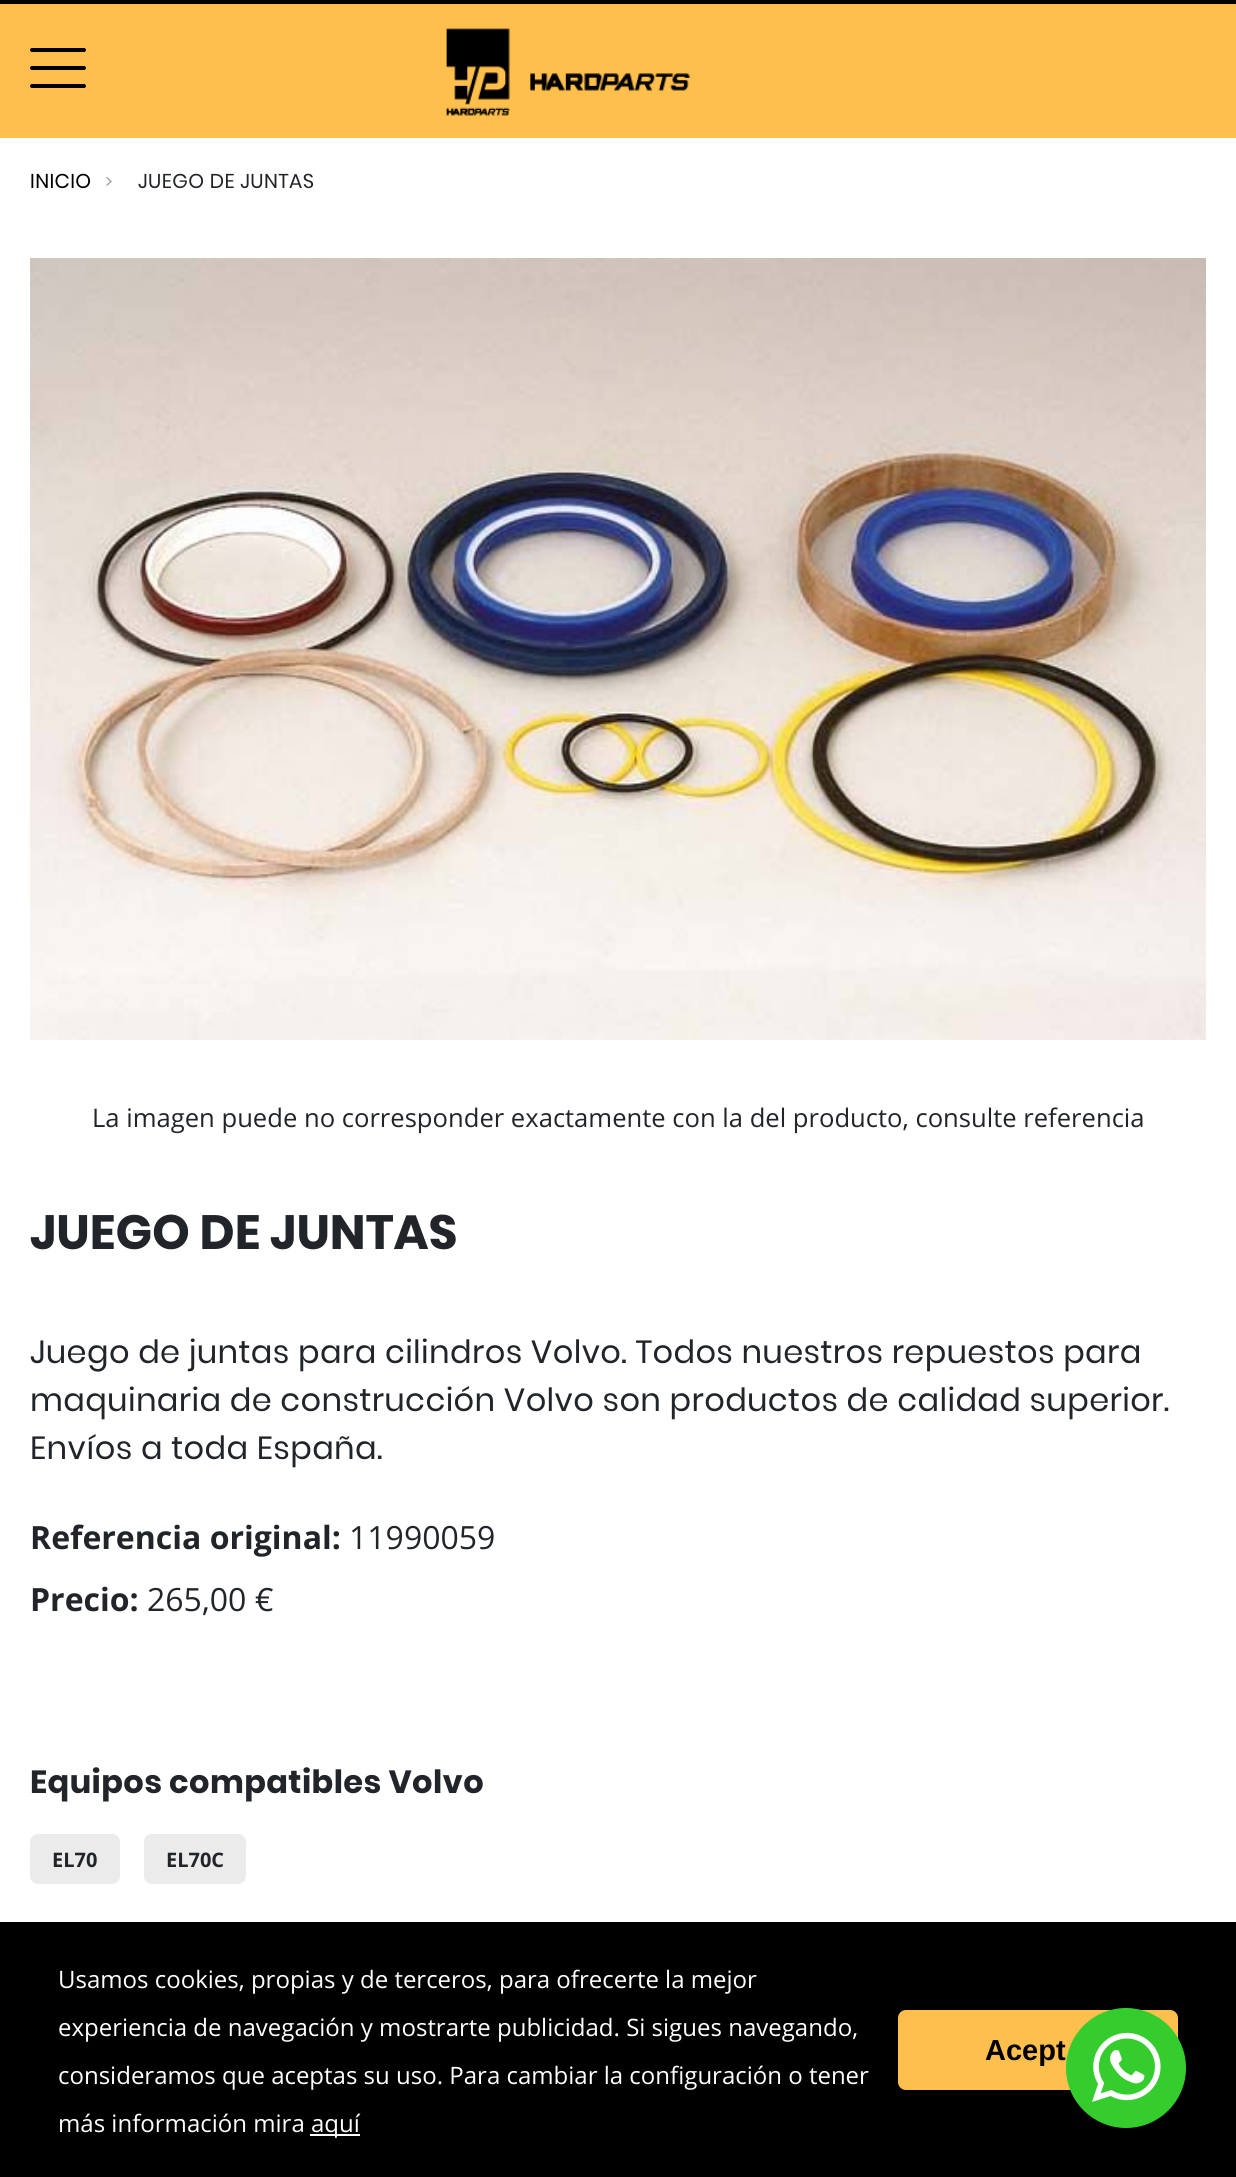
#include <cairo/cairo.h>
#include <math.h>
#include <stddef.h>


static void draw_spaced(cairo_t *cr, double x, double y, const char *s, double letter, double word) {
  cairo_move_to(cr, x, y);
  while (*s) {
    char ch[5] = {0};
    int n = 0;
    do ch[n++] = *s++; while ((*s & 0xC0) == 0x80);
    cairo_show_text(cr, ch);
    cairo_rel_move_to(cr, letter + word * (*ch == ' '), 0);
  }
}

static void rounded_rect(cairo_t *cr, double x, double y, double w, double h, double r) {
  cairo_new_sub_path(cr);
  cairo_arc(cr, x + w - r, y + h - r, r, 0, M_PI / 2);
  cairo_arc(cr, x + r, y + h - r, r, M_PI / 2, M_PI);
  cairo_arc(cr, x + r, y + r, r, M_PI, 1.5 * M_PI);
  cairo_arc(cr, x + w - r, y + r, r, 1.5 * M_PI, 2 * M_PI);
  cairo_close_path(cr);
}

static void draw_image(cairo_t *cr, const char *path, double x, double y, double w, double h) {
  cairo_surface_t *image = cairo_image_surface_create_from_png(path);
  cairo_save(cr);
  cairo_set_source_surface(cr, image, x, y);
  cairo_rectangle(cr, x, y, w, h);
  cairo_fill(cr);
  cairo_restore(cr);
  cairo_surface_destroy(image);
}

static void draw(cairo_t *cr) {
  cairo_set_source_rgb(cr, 1, 1, 1);
  cairo_paint(cr);
  cairo_set_source_rgb(cr, 1, 191 / 255.0, 76 / 255.0);
  cairo_rectangle(cr, 0, 4, 1236, 134);
  cairo_fill(cr);
  cairo_set_source_rgb(cr, 0, 0, 0);
  cairo_rectangle(cr, 0, 0, 1236, 4);
  cairo_fill(cr);
  rounded_rect(cr, 30, 48, 56, 4, 2);
  cairo_fill(cr);
  rounded_rect(cr, 30, 66, 56, 4, 2);
  cairo_fill(cr);
  rounded_rect(cr, 30, 84, 56, 4, 2);
  cairo_fill(cr);
  draw_image(cr, "images/1.png", 446, 28, 244, 88);
  draw_image(cr, "images/2.png", 30, 258, 1176, 782);
  cairo_set_source_rgb(cr, 235 / 255.0, 235 / 255.0, 235 / 255.0);
  rounded_rect(cr, 30, 1834, 90, 50, 8);
  cairo_fill(cr);
  rounded_rect(cr, 144, 1834, 102, 50, 8);
  cairo_fill(cr);
  cairo_set_source_rgb(cr, 0, 0, 0);
  cairo_rectangle(cr, 0, 1922, 1236, 255);
  cairo_fill(cr);
  cairo_set_source_rgb(cr, 1, 191 / 255.0, 76 / 255.0);
  rounded_rect(cr, 898, 2010, 280, 80, 8);
  cairo_fill(cr);
  cairo_set_source_rgb(cr, 53 / 255.0, 204 / 255.0, 45 / 255.0);
  cairo_arc(cr, 1126, 2068, 60, 0, 2 * M_PI);
  cairo_fill(cr);
  draw_image(cr, "images/3.png", 1092, 2032, 69, 70);
  cairo_set_source_rgb(cr, 1, 1, 1);
  cairo_rectangle(cr, 310, 2134, 50, 2);
  cairo_fill(cr);
  cairo_select_font_face(cr, "Poppins", CAIRO_FONT_SLANT_NORMAL, CAIRO_FONT_WEIGHT_NORMAL);
  cairo_set_font_size(cr, 20);
  cairo_set_source_rgb(cr, 0, 0, 0);
  draw_spaced(cr, 30, 188, "INICIO", 0.4, 0);
  cairo_set_font_size(cr, 18);
  cairo_set_source_rgb(cr, 163 / 255.0, 163 / 255.0, 163 / 255.0);
  draw_spaced(cr, 105, 188, ">", 0.4, 0);
  cairo_set_font_size(cr, 20);
  cairo_set_source_rgb(cr, 33 / 255.0, 37 / 255.0, 41 / 255.0);
  draw_spaced(cr, 138, 188, "JUEGO DE JUNTAS", 0.4, 0);
  cairo_select_font_face(cr, "Open Sans", CAIRO_FONT_SLANT_NORMAL, CAIRO_FONT_WEIGHT_NORMAL);
  cairo_set_font_size(cr, 25.6);
  cairo_move_to(cr, 92, 1127);
  cairo_show_text(cr, "La imagen puede no corresponder exactamente con la del producto, consulte referencia");
  cairo_select_font_face(cr, "Poppins", CAIRO_FONT_SLANT_NORMAL, CAIRO_FONT_WEIGHT_BOLD);
  cairo_set_font_size(cr, 48);
  cairo_move_to(cr, 30, 1249);
  cairo_show_text(cr, "JUEGO DE JUNTAS");
  cairo_select_font_face(cr, "Poppins", CAIRO_FONT_SLANT_NORMAL, CAIRO_FONT_WEIGHT_NORMAL);
  cairo_set_font_size(cr, 32);
  draw_spaced(cr, 30, 1363, "Juego de juntas para cilindros Volvo. Todos nuestros repuestos para", 0.4, 0);
  draw_spaced(cr, 30, 1411, "maquinaria de construcción Volvo son productos de calidad superior.", 0.4, 0);
  draw_spaced(cr, 30, 1459, "Envíos a toda España.", 0.4, 0);
  cairo_select_font_face(cr, "Open Sans", CAIRO_FONT_SLANT_NORMAL, CAIRO_FONT_WEIGHT_BOLD);
  cairo_move_to(cr, 30, 1549);
  cairo_show_text(cr, "Referencia original:");
  cairo_select_font_face(cr, "Open Sans", CAIRO_FONT_SLANT_NORMAL, CAIRO_FONT_WEIGHT_NORMAL);
  cairo_move_to(cr, 349, 1549);
  cairo_show_text(cr, "11990059");
  cairo_select_font_face(cr, "Open Sans", CAIRO_FONT_SLANT_NORMAL, CAIRO_FONT_WEIGHT_BOLD);
  cairo_move_to(cr, 30, 1611);
  cairo_show_text(cr, "Precio:");
  cairo_select_font_face(cr, "Open Sans", CAIRO_FONT_SLANT_NORMAL, CAIRO_FONT_WEIGHT_NORMAL);
  cairo_move_to(cr, 147, 1611);
  cairo_show_text(cr, "265,00 €");
  cairo_select_font_face(cr, "Poppins", CAIRO_FONT_SLANT_NORMAL, CAIRO_FONT_WEIGHT_BOLD);
  draw_spaced(cr, 30, 1793, "Equipos compatibles Volvo", 0.4, 0);
  cairo_select_font_face(cr, "Open Sans", CAIRO_FONT_SLANT_NORMAL, CAIRO_FONT_WEIGHT_BOLD);
  cairo_set_font_size(cr, 20);
  cairo_move_to(cr, 52, 1867);
  cairo_show_text(cr, "EL70");
  cairo_move_to(cr, 166, 1867);
  cairo_show_text(cr, "EL70C");
  cairo_select_font_face(cr, "Open Sans", CAIRO_FONT_SLANT_NORMAL, CAIRO_FONT_WEIGHT_NORMAL);
  cairo_set_font_size(cr, 24);
  cairo_set_source_rgb(cr, 1, 1, 1);
  cairo_move_to(cr, 58, 1988);
  cairo_show_text(cr, "Usamos cookies, propias y de terceros, para ofrecerte la mejor");
  cairo_move_to(cr, 58, 2036);
  cairo_show_text(cr, "experiencia de navegación y mostrarte publicidad. Si sigues navegando,");
  cairo_move_to(cr, 58, 2084);
  cairo_show_text(cr, "consideramos que aceptas su uso. Para cambiar la configuración o tener");
  cairo_move_to(cr, 58, 2132);
  cairo_show_text(cr, "más información mira");
  cairo_move_to(cr, 311, 2132);
  cairo_show_text(cr, "aquí");
  cairo_select_font_face(cr, "Liberation Sans", CAIRO_FONT_SLANT_NORMAL, CAIRO_FONT_WEIGHT_BOLD);
  cairo_set_font_size(cr, 29);
  cairo_set_source_rgb(cr, 0, 0, 0);
  cairo_move_to(cr, 985, 2060);
  cairo_show_text(cr, "Acept");
}

int main(void) {
  cairo_surface_t *surface = cairo_image_surface_create(CAIRO_FORMAT_RGB24, 1236, 2177);
  cairo_t *cr = cairo_create(surface);
  cairo_font_options_t *options = cairo_font_options_create();
  cairo_font_options_set_hint_metrics(options, CAIRO_HINT_METRICS_OFF);
  cairo_font_options_set_hint_style(options, CAIRO_HINT_STYLE_NONE);
  cairo_set_font_options(cr, options);
  cairo_set_miter_limit(cr, 4);
  draw(cr);
  cairo_surface_write_to_png(surface, "out.png");
  cairo_font_options_destroy(options);
  cairo_destroy(cr);
  cairo_surface_destroy(surface);
  return 0;
}
